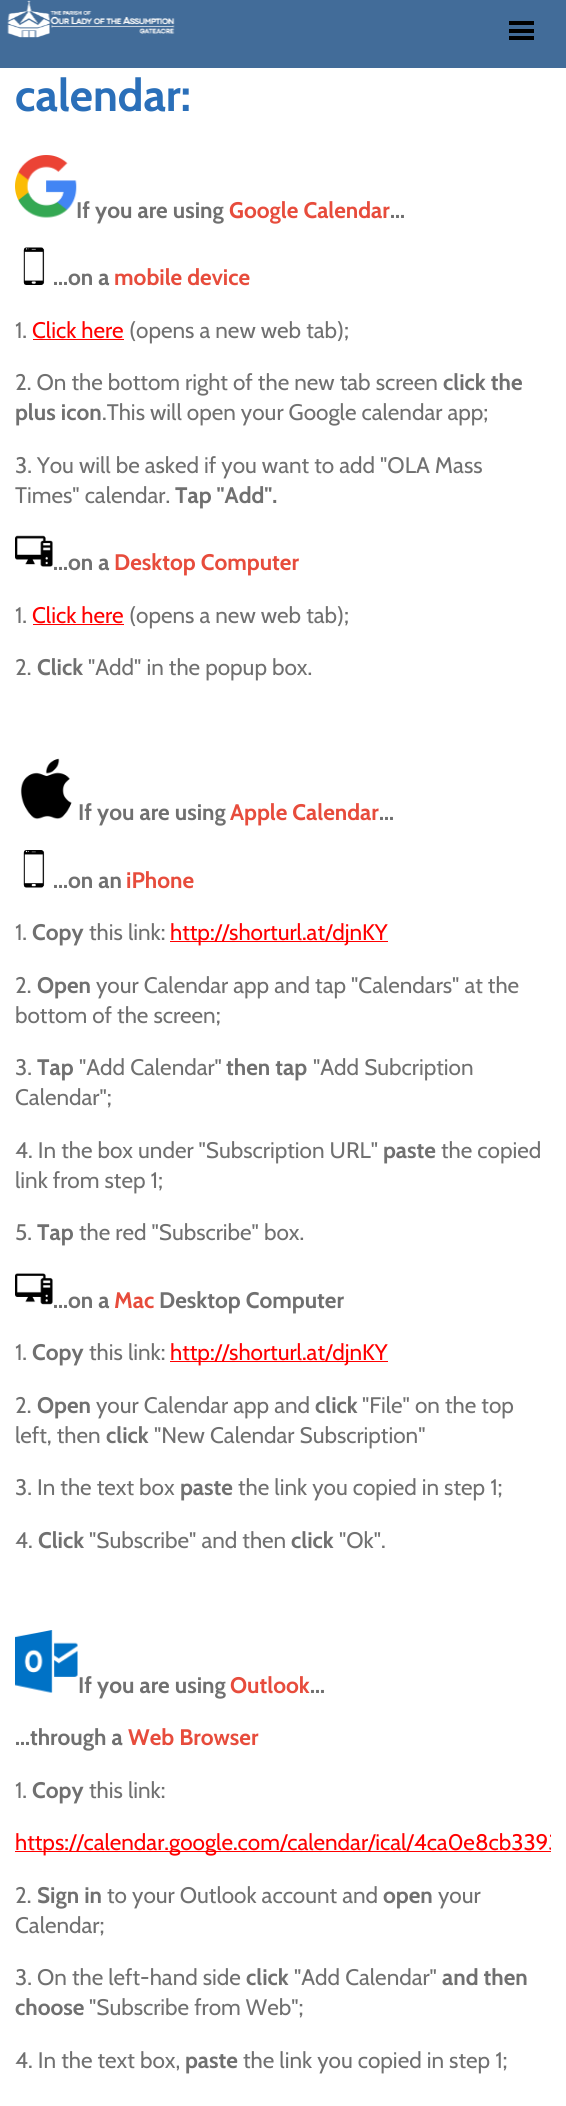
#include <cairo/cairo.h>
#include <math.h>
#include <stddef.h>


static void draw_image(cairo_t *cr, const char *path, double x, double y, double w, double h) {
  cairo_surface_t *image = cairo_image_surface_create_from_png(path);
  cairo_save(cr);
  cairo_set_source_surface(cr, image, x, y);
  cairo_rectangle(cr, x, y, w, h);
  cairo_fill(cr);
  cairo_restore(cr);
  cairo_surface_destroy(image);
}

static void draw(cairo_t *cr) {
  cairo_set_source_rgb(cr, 1, 1, 1);
  cairo_paint(cr);
  cairo_set_source_rgb(cr, 66 / 255.0, 108 / 255.0, 153 / 255.0);
  cairo_rectangle(cr, 0, 0, 566, 68);
  cairo_fill(cr);
  draw_image(cr, "images/1.png", 7, 0, 168, 38);
  cairo_set_source_rgb(cr, 0, 0, 0);
  cairo_rectangle(cr, 509, 21, 25, 4);
  cairo_fill(cr);
  cairo_rectangle(cr, 509, 29, 25, 4);
  cairo_fill(cr);
  cairo_rectangle(cr, 509, 36, 25, 4);
  cairo_fill(cr);
  draw_image(cr, "images/2.png", 15, 155, 62, 63);
  draw_image(cr, "images/3.png", 23, 247, 22, 38);
  cairo_set_source_rgb(cr, 1, 0, 0);
  cairo_rectangle(cr, 33, 339, 91, 1);
  cairo_fill(cr);
  draw_image(cr, "images/4.png", 15, 535, 38, 32);
  cairo_rectangle(cr, 33, 624, 91, 1);
  cairo_fill(cr);
  draw_image(cr, "images/5.png", 20, 758, 52, 62);
  draw_image(cr, "images/6.png", 23, 850, 22, 38);
  cairo_rectangle(cr, 170, 941, 218, 1);
  cairo_fill(cr);
  draw_image(cr, "images/7.png", 15, 1273, 38, 32);
  cairo_rectangle(cr, 170, 1361, 218, 1);
  cairo_fill(cr);
  draw_image(cr, "images/8.png", 15, 1630, 63, 63);
  cairo_rectangle(cr, 15, 1851, 536, 1);
  cairo_fill(cr);
  cairo_select_font_face(cr, "Cabin", CAIRO_FONT_SLANT_NORMAL, CAIRO_FONT_WEIGHT_BOLD);
  cairo_set_font_size(cr, 45);
  cairo_set_source_rgb(cr, 42 / 255.0, 111 / 255.0, 185 / 255.0);
  cairo_move_to(cr, 15, 111);
  cairo_show_text(cr, "calendar:");
  cairo_set_font_size(cr, 22.5);
  cairo_set_source_rgb(cr, 112 / 255.0, 112 / 255.0, 112 / 255.0);
  cairo_move_to(cr, 76, 218);
  cairo_show_text(cr, "If you are using");
  cairo_set_source_rgb(cr, 231 / 255.0, 76 / 255.0, 60 / 255.0);
  cairo_move_to(cr, 229, 218);
  cairo_show_text(cr, "Google Calendar");
  cairo_set_source_rgb(cr, 112 / 255.0, 112 / 255.0, 112 / 255.0);
  cairo_move_to(cr, 390, 218);
  cairo_show_text(cr, "...");
  cairo_move_to(cr, 53, 285);
  cairo_show_text(cr, "...on a");
  cairo_set_source_rgb(cr, 231 / 255.0, 76 / 255.0, 60 / 255.0);
  cairo_move_to(cr, 114, 285);
  cairo_show_text(cr, "mobile device");
  cairo_select_font_face(cr, "Cabin", CAIRO_FONT_SLANT_NORMAL, CAIRO_FONT_WEIGHT_NORMAL);
  cairo_set_source_rgb(cr, 112 / 255.0, 112 / 255.0, 112 / 255.0);
  cairo_move_to(cr, 15, 338);
  cairo_show_text(cr, "1.");
  cairo_set_source_rgb(cr, 1, 0, 0);
  cairo_move_to(cr, 32, 338);
  cairo_show_text(cr, "Click here");
  cairo_set_source_rgb(cr, 112 / 255.0, 112 / 255.0, 112 / 255.0);
  cairo_move_to(cr, 129, 338);
  cairo_show_text(cr, "(opens a new web tab);");
  cairo_move_to(cr, 15, 390);
  cairo_show_text(cr, "2. On the bottom right of the new tab screen");
  cairo_select_font_face(cr, "Cabin", CAIRO_FONT_SLANT_NORMAL, CAIRO_FONT_WEIGHT_BOLD);
  cairo_move_to(cr, 443, 390);
  cairo_show_text(cr, "click the");
  cairo_move_to(cr, 15, 420);
  cairo_show_text(cr, "plus icon");
  cairo_select_font_face(cr, "Cabin", CAIRO_FONT_SLANT_NORMAL, CAIRO_FONT_WEIGHT_NORMAL);
  cairo_move_to(cr, 102, 420);
  cairo_show_text(cr, ".This will open your Google calendar app;");
  cairo_move_to(cr, 15, 473);
  cairo_show_text(cr, "3. You will be asked if you want to add \"OLA Mass");
  cairo_move_to(cr, 15, 503);
  cairo_show_text(cr, "Times\" calendar.");
  cairo_select_font_face(cr, "Cabin", CAIRO_FONT_SLANT_NORMAL, CAIRO_FONT_WEIGHT_BOLD);
  cairo_move_to(cr, 175, 503);
  cairo_show_text(cr, "Tap \"Add\".");
  cairo_move_to(cr, 53, 570);
  cairo_show_text(cr, "...on a");
  cairo_set_source_rgb(cr, 231 / 255.0, 76 / 255.0, 60 / 255.0);
  cairo_move_to(cr, 114, 570);
  cairo_show_text(cr, "Desktop Computer");
  cairo_select_font_face(cr, "Cabin", CAIRO_FONT_SLANT_NORMAL, CAIRO_FONT_WEIGHT_NORMAL);
  cairo_set_source_rgb(cr, 112 / 255.0, 112 / 255.0, 112 / 255.0);
  cairo_move_to(cr, 15, 623);
  cairo_show_text(cr, "1.");
  cairo_set_source_rgb(cr, 1, 0, 0);
  cairo_move_to(cr, 32, 623);
  cairo_show_text(cr, "Click here");
  cairo_set_source_rgb(cr, 112 / 255.0, 112 / 255.0, 112 / 255.0);
  cairo_move_to(cr, 129, 623);
  cairo_show_text(cr, "(opens a new web tab);");
  cairo_move_to(cr, 15, 675);
  cairo_show_text(cr, "2.");
  cairo_select_font_face(cr, "Cabin", CAIRO_FONT_SLANT_NORMAL, CAIRO_FONT_WEIGHT_BOLD);
  cairo_move_to(cr, 37, 675);
  cairo_show_text(cr, "Click");
  cairo_select_font_face(cr, "Cabin", CAIRO_FONT_SLANT_NORMAL, CAIRO_FONT_WEIGHT_NORMAL);
  cairo_move_to(cr, 88, 675);
  cairo_show_text(cr, "\"Add\" in the popup box.");
  cairo_select_font_face(cr, "Cabin", CAIRO_FONT_SLANT_NORMAL, CAIRO_FONT_WEIGHT_BOLD);
  cairo_move_to(cr, 78, 820);
  cairo_show_text(cr, "If you are using");
  cairo_set_source_rgb(cr, 231 / 255.0, 76 / 255.0, 60 / 255.0);
  cairo_move_to(cr, 230, 820);
  cairo_show_text(cr, "Apple Calendar");
  cairo_set_source_rgb(cr, 112 / 255.0, 112 / 255.0, 112 / 255.0);
  cairo_move_to(cr, 379, 820);
  cairo_show_text(cr, "...");
  cairo_move_to(cr, 53, 888);
  cairo_show_text(cr, "...on an");
  cairo_set_source_rgb(cr, 231 / 255.0, 76 / 255.0, 60 / 255.0);
  cairo_move_to(cr, 126, 888);
  cairo_show_text(cr, "iPhone");
  cairo_select_font_face(cr, "Cabin", CAIRO_FONT_SLANT_NORMAL, CAIRO_FONT_WEIGHT_NORMAL);
  cairo_set_source_rgb(cr, 112 / 255.0, 112 / 255.0, 112 / 255.0);
  cairo_move_to(cr, 15, 940);
  cairo_show_text(cr, "1.");
  cairo_select_font_face(cr, "Cabin", CAIRO_FONT_SLANT_NORMAL, CAIRO_FONT_WEIGHT_BOLD);
  cairo_move_to(cr, 32, 940);
  cairo_show_text(cr, "Copy");
  cairo_select_font_face(cr, "Cabin", CAIRO_FONT_SLANT_NORMAL, CAIRO_FONT_WEIGHT_NORMAL);
  cairo_move_to(cr, 89, 940);
  cairo_show_text(cr, "this link:");
  cairo_set_source_rgb(cr, 1, 0, 0);
  cairo_move_to(cr, 170, 940);
  cairo_show_text(cr, "http://shorturl.at/djnKY");
  cairo_set_source_rgb(cr, 112 / 255.0, 112 / 255.0, 112 / 255.0);
  cairo_move_to(cr, 15, 993);
  cairo_show_text(cr, "2.");
  cairo_select_font_face(cr, "Cabin", CAIRO_FONT_SLANT_NORMAL, CAIRO_FONT_WEIGHT_BOLD);
  cairo_move_to(cr, 37, 993);
  cairo_show_text(cr, "Open");
  cairo_select_font_face(cr, "Cabin", CAIRO_FONT_SLANT_NORMAL, CAIRO_FONT_WEIGHT_NORMAL);
  cairo_move_to(cr, 96, 993);
  cairo_show_text(cr, "your Calendar app and tap \"Calendars\" at the");
  cairo_move_to(cr, 15, 1023);
  cairo_show_text(cr, "bottom of the screen;");
  cairo_move_to(cr, 15, 1075);
  cairo_show_text(cr, "3.");
  cairo_select_font_face(cr, "Cabin", CAIRO_FONT_SLANT_NORMAL, CAIRO_FONT_WEIGHT_BOLD);
  cairo_move_to(cr, 37, 1075);
  cairo_show_text(cr, "Tap");
  cairo_select_font_face(cr, "Cabin", CAIRO_FONT_SLANT_NORMAL, CAIRO_FONT_WEIGHT_NORMAL);
  cairo_move_to(cr, 79, 1075);
  cairo_show_text(cr, "\"Add Calendar\"");
  cairo_select_font_face(cr, "Cabin", CAIRO_FONT_SLANT_NORMAL, CAIRO_FONT_WEIGHT_BOLD);
  cairo_move_to(cr, 226, 1075);
  cairo_show_text(cr, "then tap");
  cairo_select_font_face(cr, "Cabin", CAIRO_FONT_SLANT_NORMAL, CAIRO_FONT_WEIGHT_NORMAL);
  cairo_move_to(cr, 313, 1075);
  cairo_show_text(cr, "\"Add Subcription");
  cairo_move_to(cr, 15, 1105);
  cairo_show_text(cr, "Calendar\";");
  cairo_move_to(cr, 15, 1158);
  cairo_show_text(cr, "4. In the box under \"Subscription URL\"");
  cairo_select_font_face(cr, "Cabin", CAIRO_FONT_SLANT_NORMAL, CAIRO_FONT_WEIGHT_BOLD);
  cairo_move_to(cr, 383, 1158);
  cairo_show_text(cr, "paste");
  cairo_select_font_face(cr, "Cabin", CAIRO_FONT_SLANT_NORMAL, CAIRO_FONT_WEIGHT_NORMAL);
  cairo_move_to(cr, 441, 1158);
  cairo_show_text(cr, "the copied");
  cairo_move_to(cr, 15, 1188);
  cairo_show_text(cr, "link from step 1;");
  cairo_move_to(cr, 15, 1240);
  cairo_show_text(cr, "5.");
  cairo_select_font_face(cr, "Cabin", CAIRO_FONT_SLANT_NORMAL, CAIRO_FONT_WEIGHT_BOLD);
  cairo_move_to(cr, 37, 1240);
  cairo_show_text(cr, "Tap");
  cairo_select_font_face(cr, "Cabin", CAIRO_FONT_SLANT_NORMAL, CAIRO_FONT_WEIGHT_NORMAL);
  cairo_move_to(cr, 79, 1240);
  cairo_show_text(cr, "the red \"Subscribe\" box.");
  cairo_select_font_face(cr, "Cabin", CAIRO_FONT_SLANT_NORMAL, CAIRO_FONT_WEIGHT_BOLD);
  cairo_move_to(cr, 53, 1308);
  cairo_show_text(cr, "...on a");
  cairo_set_source_rgb(cr, 231 / 255.0, 76 / 255.0, 60 / 255.0);
  cairo_move_to(cr, 114, 1308);
  cairo_show_text(cr, "Mac");
  cairo_set_source_rgb(cr, 112 / 255.0, 112 / 255.0, 112 / 255.0);
  cairo_move_to(cr, 159, 1308);
  cairo_show_text(cr, "Desktop Computer");
  cairo_select_font_face(cr, "Cabin", CAIRO_FONT_SLANT_NORMAL, CAIRO_FONT_WEIGHT_NORMAL);
  cairo_move_to(cr, 15, 1360);
  cairo_show_text(cr, "1.");
  cairo_select_font_face(cr, "Cabin", CAIRO_FONT_SLANT_NORMAL, CAIRO_FONT_WEIGHT_BOLD);
  cairo_move_to(cr, 32, 1360);
  cairo_show_text(cr, "Copy");
  cairo_select_font_face(cr, "Cabin", CAIRO_FONT_SLANT_NORMAL, CAIRO_FONT_WEIGHT_NORMAL);
  cairo_move_to(cr, 89, 1360);
  cairo_show_text(cr, "this link:");
  cairo_set_source_rgb(cr, 1, 0, 0);
  cairo_move_to(cr, 170, 1360);
  cairo_show_text(cr, "http://shorturl.at/djnKY");
  cairo_set_source_rgb(cr, 112 / 255.0, 112 / 255.0, 112 / 255.0);
  cairo_move_to(cr, 15, 1413);
  cairo_show_text(cr, "2.");
  cairo_select_font_face(cr, "Cabin", CAIRO_FONT_SLANT_NORMAL, CAIRO_FONT_WEIGHT_BOLD);
  cairo_move_to(cr, 37, 1413);
  cairo_show_text(cr, "Open");
  cairo_select_font_face(cr, "Cabin", CAIRO_FONT_SLANT_NORMAL, CAIRO_FONT_WEIGHT_NORMAL);
  cairo_move_to(cr, 96, 1413);
  cairo_show_text(cr, "your Calendar app and");
  cairo_select_font_face(cr, "Cabin", CAIRO_FONT_SLANT_NORMAL, CAIRO_FONT_WEIGHT_BOLD);
  cairo_move_to(cr, 315, 1413);
  cairo_show_text(cr, "click");
  cairo_select_font_face(cr, "Cabin", CAIRO_FONT_SLANT_NORMAL, CAIRO_FONT_WEIGHT_NORMAL);
  cairo_move_to(cr, 362, 1413);
  cairo_show_text(cr, "\"File\" on the top");
  cairo_move_to(cr, 15, 1443);
  cairo_show_text(cr, "left, then");
  cairo_select_font_face(cr, "Cabin", CAIRO_FONT_SLANT_NORMAL, CAIRO_FONT_WEIGHT_BOLD);
  cairo_move_to(cr, 106, 1443);
  cairo_show_text(cr, "click");
  cairo_select_font_face(cr, "Cabin", CAIRO_FONT_SLANT_NORMAL, CAIRO_FONT_WEIGHT_NORMAL);
  cairo_move_to(cr, 154, 1443);
  cairo_show_text(cr, "\"New Calendar Subscription\"");
  cairo_move_to(cr, 15, 1495);
  cairo_show_text(cr, "3. In the text box");
  cairo_select_font_face(cr, "Cabin", CAIRO_FONT_SLANT_NORMAL, CAIRO_FONT_WEIGHT_BOLD);
  cairo_move_to(cr, 180, 1495);
  cairo_show_text(cr, "paste");
  cairo_select_font_face(cr, "Cabin", CAIRO_FONT_SLANT_NORMAL, CAIRO_FONT_WEIGHT_NORMAL);
  cairo_move_to(cr, 238, 1495);
  cairo_show_text(cr, "the link you copied in step 1;");
  cairo_move_to(cr, 15, 1548);
  cairo_show_text(cr, "4.");
  cairo_select_font_face(cr, "Cabin", CAIRO_FONT_SLANT_NORMAL, CAIRO_FONT_WEIGHT_BOLD);
  cairo_move_to(cr, 38, 1548);
  cairo_show_text(cr, "Click");
  cairo_select_font_face(cr, "Cabin", CAIRO_FONT_SLANT_NORMAL, CAIRO_FONT_WEIGHT_NORMAL);
  cairo_move_to(cr, 89, 1548);
  cairo_show_text(cr, "\"Subscribe\" and then");
  cairo_select_font_face(cr, "Cabin", CAIRO_FONT_SLANT_NORMAL, CAIRO_FONT_WEIGHT_BOLD);
  cairo_move_to(cr, 291, 1548);
  cairo_show_text(cr, "click");
  cairo_select_font_face(cr, "Cabin", CAIRO_FONT_SLANT_NORMAL, CAIRO_FONT_WEIGHT_NORMAL);
  cairo_move_to(cr, 339, 1548);
  cairo_show_text(cr, "\"Ok\".");
  cairo_select_font_face(cr, "Cabin", CAIRO_FONT_SLANT_NORMAL, CAIRO_FONT_WEIGHT_BOLD);
  cairo_move_to(cr, 78, 1693);
  cairo_show_text(cr, "If you are using");
  cairo_set_source_rgb(cr, 231 / 255.0, 76 / 255.0, 60 / 255.0);
  cairo_move_to(cr, 230, 1693);
  cairo_show_text(cr, "Outlook");
  cairo_set_source_rgb(cr, 112 / 255.0, 112 / 255.0, 112 / 255.0);
  cairo_move_to(cr, 310, 1693);
  cairo_show_text(cr, "...");
  cairo_move_to(cr, 15, 1745);
  cairo_show_text(cr, "...through a");
  cairo_set_source_rgb(cr, 231 / 255.0, 76 / 255.0, 60 / 255.0);
  cairo_move_to(cr, 128, 1745);
  cairo_show_text(cr, "Web Browser");
  cairo_select_font_face(cr, "Cabin", CAIRO_FONT_SLANT_NORMAL, CAIRO_FONT_WEIGHT_NORMAL);
  cairo_set_source_rgb(cr, 112 / 255.0, 112 / 255.0, 112 / 255.0);
  cairo_move_to(cr, 15, 1798);
  cairo_show_text(cr, "1.");
  cairo_select_font_face(cr, "Cabin", CAIRO_FONT_SLANT_NORMAL, CAIRO_FONT_WEIGHT_BOLD);
  cairo_move_to(cr, 32, 1798);
  cairo_show_text(cr, "Copy");
  cairo_select_font_face(cr, "Cabin", CAIRO_FONT_SLANT_NORMAL, CAIRO_FONT_WEIGHT_NORMAL);
  cairo_move_to(cr, 89, 1798);
  cairo_show_text(cr, "this link:");
  cairo_save(cr);
  cairo_rectangle(cr, 15, 0, 536, 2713);
  cairo_clip(cr);
  cairo_set_source_rgb(cr, 1, 0, 0);
  cairo_move_to(cr, 15, 1850);
  cairo_show_text(cr, "https://calendar.google.com/calendar/ical/4ca0e8cb3393");
  cairo_restore(cr);
  cairo_move_to(cr, 15, 1903);
  cairo_show_text(cr, "2.");
  cairo_select_font_face(cr, "Cabin", CAIRO_FONT_SLANT_NORMAL, CAIRO_FONT_WEIGHT_BOLD);
  cairo_move_to(cr, 37, 1903);
  cairo_show_text(cr, "Sign in");
  cairo_select_font_face(cr, "Cabin", CAIRO_FONT_SLANT_NORMAL, CAIRO_FONT_WEIGHT_NORMAL);
  cairo_move_to(cr, 107, 1903);
  cairo_show_text(cr, "to your Outlook account and");
  cairo_select_font_face(cr, "Cabin", CAIRO_FONT_SLANT_NORMAL, CAIRO_FONT_WEIGHT_BOLD);
  cairo_move_to(cr, 383, 1903);
  cairo_show_text(cr, "open");
  cairo_select_font_face(cr, "Cabin", CAIRO_FONT_SLANT_NORMAL, CAIRO_FONT_WEIGHT_NORMAL);
  cairo_move_to(cr, 438, 1903);
  cairo_show_text(cr, "your");
  cairo_move_to(cr, 15, 1933);
  cairo_show_text(cr, "Calendar;");
  cairo_move_to(cr, 15, 1985);
  cairo_show_text(cr, "3. On the left-hand side");
  cairo_select_font_face(cr, "Cabin", CAIRO_FONT_SLANT_NORMAL, CAIRO_FONT_WEIGHT_BOLD);
  cairo_move_to(cr, 246, 1985);
  cairo_show_text(cr, "click");
  cairo_select_font_face(cr, "Cabin", CAIRO_FONT_SLANT_NORMAL, CAIRO_FONT_WEIGHT_NORMAL);
  cairo_move_to(cr, 294, 1985);
  cairo_show_text(cr, "\"Add Calendar\"");
  cairo_select_font_face(cr, "Cabin", CAIRO_FONT_SLANT_NORMAL, CAIRO_FONT_WEIGHT_BOLD);
  cairo_move_to(cr, 442, 1985);
  cairo_show_text(cr, "and then");
  cairo_move_to(cr, 15, 2015);
  cairo_show_text(cr, "choose");
  cairo_select_font_face(cr, "Cabin", CAIRO_FONT_SLANT_NORMAL, CAIRO_FONT_WEIGHT_NORMAL);
  cairo_move_to(cr, 89, 2015);
  cairo_show_text(cr, "\"Subscribe from Web\";");
  cairo_move_to(cr, 15, 2068);
  cairo_show_text(cr, "4. In the text box,");
  cairo_select_font_face(cr, "Cabin", CAIRO_FONT_SLANT_NORMAL, CAIRO_FONT_WEIGHT_BOLD);
  cairo_move_to(cr, 185, 2068);
  cairo_show_text(cr, "paste");
  cairo_select_font_face(cr, "Cabin", CAIRO_FONT_SLANT_NORMAL, CAIRO_FONT_WEIGHT_NORMAL);
  cairo_move_to(cr, 243, 2068);
  cairo_show_text(cr, "the link you copied in step 1;");
}

int main(void) {
  cairo_surface_t *surface = cairo_image_surface_create(CAIRO_FORMAT_RGB24, 566, 2106);
  cairo_t *cr = cairo_create(surface);
  cairo_font_options_t *options = cairo_font_options_create();
  cairo_font_options_set_hint_metrics(options, CAIRO_HINT_METRICS_OFF);
  cairo_font_options_set_hint_style(options, CAIRO_HINT_STYLE_NONE);
  cairo_set_font_options(cr, options);
  cairo_set_miter_limit(cr, 4);
  draw(cr);
  cairo_surface_write_to_png(surface, "out.png");
  cairo_font_options_destroy(options);
  cairo_destroy(cr);
  cairo_surface_destroy(surface);
  return 0;
}
